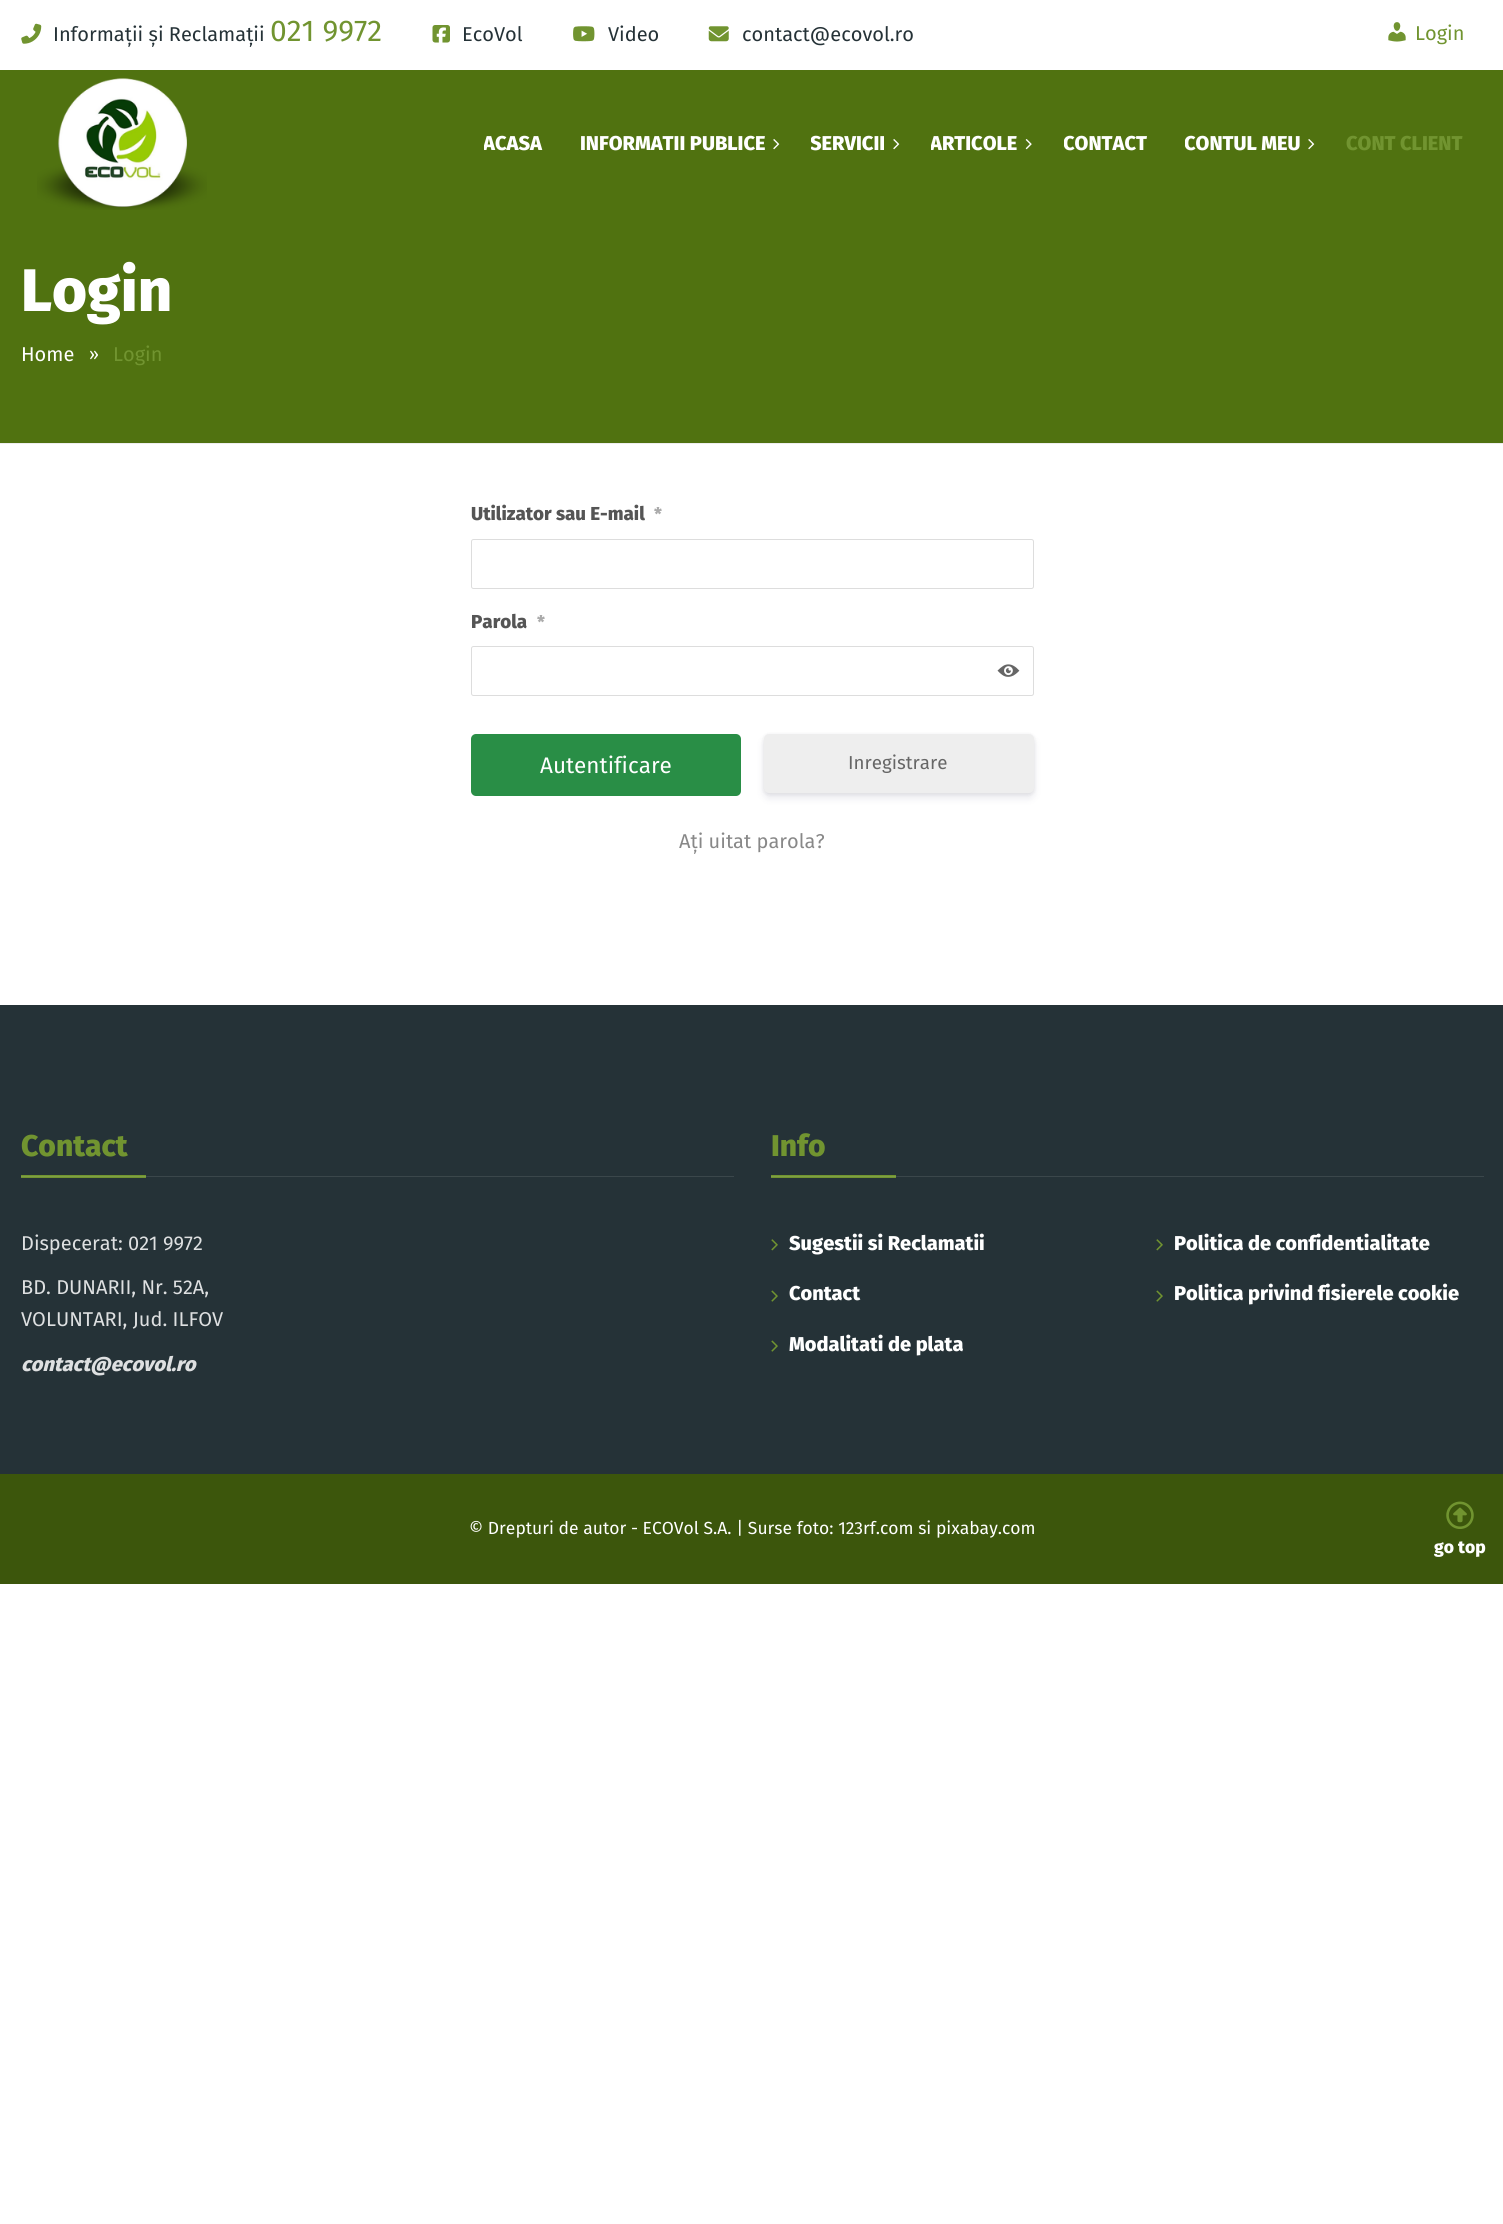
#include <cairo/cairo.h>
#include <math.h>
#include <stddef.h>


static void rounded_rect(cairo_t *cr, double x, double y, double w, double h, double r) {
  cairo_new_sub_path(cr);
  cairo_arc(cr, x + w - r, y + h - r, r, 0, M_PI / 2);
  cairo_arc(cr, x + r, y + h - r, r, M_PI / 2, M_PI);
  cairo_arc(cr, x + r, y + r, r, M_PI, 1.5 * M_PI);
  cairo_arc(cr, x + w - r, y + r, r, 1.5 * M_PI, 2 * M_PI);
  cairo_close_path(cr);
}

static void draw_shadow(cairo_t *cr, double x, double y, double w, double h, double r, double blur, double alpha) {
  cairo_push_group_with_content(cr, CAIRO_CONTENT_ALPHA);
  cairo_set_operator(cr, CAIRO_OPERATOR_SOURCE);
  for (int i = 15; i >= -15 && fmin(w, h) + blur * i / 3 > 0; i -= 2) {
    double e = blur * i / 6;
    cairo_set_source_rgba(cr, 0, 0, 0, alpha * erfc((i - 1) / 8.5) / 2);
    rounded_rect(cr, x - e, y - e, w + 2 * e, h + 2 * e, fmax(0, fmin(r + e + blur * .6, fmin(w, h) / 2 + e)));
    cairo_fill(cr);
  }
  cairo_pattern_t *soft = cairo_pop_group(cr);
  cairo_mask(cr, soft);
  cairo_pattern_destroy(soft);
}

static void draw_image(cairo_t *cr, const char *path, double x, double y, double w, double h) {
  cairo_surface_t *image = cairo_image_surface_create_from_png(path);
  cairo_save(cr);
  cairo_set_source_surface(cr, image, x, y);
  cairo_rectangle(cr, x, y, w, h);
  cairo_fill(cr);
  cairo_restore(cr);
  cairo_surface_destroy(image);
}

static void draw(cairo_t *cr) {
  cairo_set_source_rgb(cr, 1, 1, 1);
  cairo_paint(cr);
  draw_image(cr, "images/1.png", 21, 23, 21, 21);
  draw_image(cr, "images/2.png", 432, 25, 18, 18);
  draw_image(cr, "images/3.png", 573, 26, 22, 16);
  draw_image(cr, "images/4.png", 708, 26, 21, 16);
  draw_image(cr, "images/5.png", 1388, 22, 18, 20);
  cairo_set_source_rgb(cr, 80 / 255.0, 114 / 255.0, 16 / 255.0);
  cairo_rectangle(cr, 0, 70, 1503, 373);
  cairo_fill(cr);
  draw_image(cr, "images/6.png", 37, 78, 170, 132);
  draw_image(cr, "images/7.png", 773, 139, 7, 11);
  draw_image(cr, "images/7.png", 893, 139, 7, 11);
  draw_image(cr, "images/8.png", 1025, 139, 7, 11);
  draw_image(cr, "images/7.png", 1308, 139, 7, 11);
  cairo_set_source_rgb(cr, 238 / 255.0, 238 / 255.0, 238 / 255.0);
  cairo_rectangle(cr, 0, 443, 1503, 1);
  cairo_fill(cr);
  rounded_rect(cr, 471.5, 539.5, 562, 49, 2);
  cairo_set_source_rgb(cr, 221 / 255.0, 221 / 255.0, 221 / 255.0);
  cairo_set_line_width(cr, 1);
  cairo_stroke(cr);
  rounded_rect(cr, 471.5, 646.5, 562, 49, 2);
  cairo_stroke(cr);
  draw_image(cr, "images/9.png", 997, 664, 23, 13);
  cairo_set_source_rgb(cr, 41 / 255.0, 142 / 255.0, 70 / 255.0);
  rounded_rect(cr, 471, 734, 270, 62, 5);
  cairo_fill(cr);
  cairo_set_source_rgb(cr, 0, 0, 0);
  draw_shadow(cr, 764, 735, 270, 59, 5, 2, 0.08);
  cairo_set_source_rgb(cr, 50 / 255.0, 50 / 255.0, 93 / 255.0);
  draw_shadow(cr, 764, 739, 270, 59, 5, 4, 0.11);
  cairo_set_source_rgb(cr, 238 / 255.0, 238 / 255.0, 238 / 255.0);
  rounded_rect(cr, 764, 734, 270, 59, 5);
  cairo_fill(cr);
  cairo_set_source_rgb(cr, 37 / 255.0, 50 / 255.0, 55 / 255.0);
  cairo_rectangle(cr, 0, 1005, 1503, 469);
  cairo_fill(cr);
  cairo_set_source_rgb(cr, 59 / 255.0, 71 / 255.0, 75 / 255.0);
  cairo_rectangle(cr, 896, 1176, 588, 1);
  cairo_fill(cr);
  cairo_rectangle(cr, 146, 1176, 588, 1);
  cairo_fill(cr);
  cairo_set_source_rgb(cr, 113 / 255.0, 148 / 255.0, 48 / 255.0);
  cairo_rectangle(cr, 21, 1175, 125, 3);
  cairo_fill(cr);
  cairo_set_source_rgb(cr, 127 / 255.0, 159 / 255.0, 69 / 255.0);
  cairo_rectangle(cr, 21, 1176, 125, 1);
  cairo_fill(cr);
  cairo_set_source_rgb(cr, 113 / 255.0, 148 / 255.0, 48 / 255.0);
  cairo_rectangle(cr, 771, 1175, 125, 3);
  cairo_fill(cr);
  cairo_set_source_rgb(cr, 127 / 255.0, 159 / 255.0, 69 / 255.0);
  cairo_rectangle(cr, 771, 1176, 125, 1);
  cairo_fill(cr);
  draw_image(cr, "images/10.png", 771, 1239, 7, 12);
  draw_image(cr, "images/10.png", 1156, 1239, 7, 12);
  draw_image(cr, "images/11.png", 771, 1290, 7, 12);
  draw_image(cr, "images/11.png", 1156, 1290, 7, 12);
  draw_image(cr, "images/11.png", 771, 1340, 7, 12);
  cairo_set_source_rgb(cr, 60 / 255.0, 86 / 255.0, 12 / 255.0);
  cairo_rectangle(cr, 0, 1474, 1503, 110);
  cairo_fill(cr);
  draw_image(cr, "images/12.png", 1446, 1501, 28, 28);
  cairo_select_font_face(cr, "Fira Sans", CAIRO_FONT_SLANT_NORMAL, CAIRO_FONT_WEIGHT_NORMAL);
  cairo_set_font_size(cr, 20);
  cairo_set_source_rgb(cr, 37 / 255.0, 50 / 255.0, 55 / 255.0);
  cairo_move_to(cr, 53, 41);
  cairo_show_text(cr, "Informații și Reclamații");
  cairo_set_font_size(cr, 30);
  cairo_set_source_rgb(cr, 113 / 255.0, 148 / 255.0, 48 / 255.0);
  cairo_move_to(cr, 270, 41);
  cairo_show_text(cr, "021 9972");
  cairo_set_font_size(cr, 20);
  cairo_set_source_rgb(cr, 37 / 255.0, 50 / 255.0, 55 / 255.0);
  cairo_move_to(cr, 462, 41);
  cairo_show_text(cr, "EcoVol");
  cairo_move_to(cr, 608, 41);
  cairo_show_text(cr, "Video");
  cairo_move_to(cr, 742, 41);
  cairo_show_text(cr, "contact@ecovol.ro");
  cairo_set_source_rgb(cr, 113 / 255.0, 148 / 255.0, 48 / 255.0);
  cairo_move_to(cr, 1415, 40);
  cairo_show_text(cr, "Login");
  cairo_save(cr);
  cairo_rectangle(cr, 484, 131, 59, 38);
  cairo_clip(cr);
  cairo_select_font_face(cr, "Fira Sans ExtraBold", CAIRO_FONT_SLANT_NORMAL, CAIRO_FONT_WEIGHT_NORMAL);
  cairo_set_source_rgb(cr, 1, 1, 1);
  cairo_move_to(cr, 483, 150);
  cairo_show_text(cr, "ACASA");
  cairo_restore(cr);
  cairo_select_font_face(cr, "Fira Sans ExtraBold", CAIRO_FONT_SLANT_NORMAL, CAIRO_FONT_WEIGHT_NORMAL);
  cairo_set_source_rgb(cr, 1, 1, 1);
  cairo_move_to(cr, 580, 150);
  cairo_show_text(cr, "INFORMATII PUBLICE");
  cairo_save(cr);
  cairo_rectangle(cr, 811, 131, 75, 38);
  cairo_clip(cr);
  cairo_move_to(cr, 810, 150);
  cairo_show_text(cr, "SERVICII");
  cairo_restore(cr);
  cairo_save(cr);
  cairo_rectangle(cr, 931, 131, 88, 38);
  cairo_clip(cr);
  cairo_move_to(cr, 930, 150);
  cairo_show_text(cr, "ARTICOLE");
  cairo_restore(cr);
  cairo_save(cr);
  cairo_rectangle(cr, 1064, 131, 84, 38);
  cairo_clip(cr);
  cairo_move_to(cr, 1063, 150);
  cairo_show_text(cr, "CONTACT");
  cairo_restore(cr);
  cairo_save(cr);
  cairo_rectangle(cr, 1185, 131, 116, 38);
  cairo_clip(cr);
  cairo_move_to(cr, 1184, 150);
  cairo_show_text(cr, "CONTUL MEU");
  cairo_restore(cr);
  cairo_set_source_rgb(cr, 113 / 255.0, 148 / 255.0, 48 / 255.0);
  cairo_move_to(cr, 1346, 150);
  cairo_show_text(cr, "CONT CLIENT");
  cairo_set_font_size(cr, 60);
  cairo_set_source_rgb(cr, 1, 1, 1);
  cairo_move_to(cr, 21, 311);
  cairo_show_text(cr, "Login");
  cairo_select_font_face(cr, "Fira Sans", CAIRO_FONT_SLANT_NORMAL, CAIRO_FONT_WEIGHT_NORMAL);
  cairo_set_font_size(cr, 20);
  cairo_move_to(cr, 21, 361);
  cairo_show_text(cr, "Home");
  cairo_set_font_size(cr, 17.5);
  cairo_move_to(cr, 89, 360);
  cairo_show_text(cr, "»");
  cairo_set_font_size(cr, 20);
  cairo_set_source_rgb(cr, 113 / 255.0, 148 / 255.0, 48 / 255.0);
  cairo_move_to(cr, 113, 361);
  cairo_show_text(cr, "Login");
  cairo_select_font_face(cr, "Fira Sans ExtraBold", CAIRO_FONT_SLANT_NORMAL, CAIRO_FONT_WEIGHT_NORMAL);
  cairo_set_font_size(cr, 18.75);
  cairo_set_source_rgb(cr, 85 / 255.0, 85 / 255.0, 85 / 255.0);
  cairo_move_to(cr, 471, 520);
  cairo_show_text(cr, "Utilizator sau E-mail");
  cairo_set_font_size(cr, 17.5);
  cairo_set_source_rgb(cr, 170 / 255.0, 170 / 255.0, 170 / 255.0);
  cairo_move_to(cr, 654, 520);
  cairo_show_text(cr, "*");
  cairo_set_font_size(cr, 18.75);
  cairo_set_source_rgb(cr, 85 / 255.0, 85 / 255.0, 85 / 255.0);
  cairo_move_to(cr, 471, 628);
  cairo_show_text(cr, "Parola");
  cairo_set_font_size(cr, 17.5);
  cairo_set_source_rgb(cr, 170 / 255.0, 170 / 255.0, 170 / 255.0);
  cairo_move_to(cr, 537, 628);
  cairo_show_text(cr, "*");
  cairo_select_font_face(cr, "Fira Sans", CAIRO_FONT_SLANT_NORMAL, CAIRO_FONT_WEIGHT_NORMAL);
  cairo_set_font_size(cr, 22.5);
  cairo_set_source_rgb(cr, 1, 1, 1);
  cairo_move_to(cr, 540, 773);
  cairo_show_text(cr, "Autentificare");
  cairo_set_font_size(cr, 18.75);
  cairo_set_source_rgb(cr, 102 / 255.0, 102 / 255.0, 102 / 255.0);
  cairo_move_to(cr, 848, 769);
  cairo_show_text(cr, "Inregistrare");
  cairo_set_font_size(cr, 20);
  cairo_set_source_rgb(cr, 136 / 255.0, 136 / 255.0, 136 / 255.0);
  cairo_move_to(cr, 679, 848);
  cairo_show_text(cr, "Ați uitat parola?");
  cairo_select_font_face(cr, "Fira Sans ExtraBold", CAIRO_FONT_SLANT_NORMAL, CAIRO_FONT_WEIGHT_NORMAL);
  cairo_set_font_size(cr, 30);
  cairo_set_source_rgb(cr, 113 / 255.0, 148 / 255.0, 48 / 255.0);
  cairo_move_to(cr, 21, 1156);
  cairo_show_text(cr, "Contact");
  cairo_select_font_face(cr, "Fira Sans", CAIRO_FONT_SLANT_NORMAL, CAIRO_FONT_WEIGHT_NORMAL);
  cairo_set_font_size(cr, 20);
  cairo_set_source_rgb(cr, 222 / 255.0, 224 / 255.0, 225 / 255.0);
  cairo_move_to(cr, 21, 1250);
  cairo_show_text(cr, "Dispecerat: 021 9972");
  cairo_move_to(cr, 21, 1294);
  cairo_show_text(cr, "BD. DUNARII, Nr. 52A,");
  cairo_move_to(cr, 21, 1326);
  cairo_show_text(cr, "VOLUNTARI, Jud. ILFOV");
  cairo_select_font_face(cr, "Fira Sans ExtraBold", CAIRO_FONT_SLANT_ITALIC, CAIRO_FONT_WEIGHT_NORMAL);
  cairo_move_to(cr, 21, 1371);
  cairo_show_text(cr, "contact@ecovol.ro");
  cairo_select_font_face(cr, "Fira Sans ExtraBold", CAIRO_FONT_SLANT_NORMAL, CAIRO_FONT_WEIGHT_NORMAL);
  cairo_set_font_size(cr, 30);
  cairo_set_source_rgb(cr, 113 / 255.0, 148 / 255.0, 48 / 255.0);
  cairo_move_to(cr, 771, 1156);
  cairo_show_text(cr, "Info");
  cairo_set_font_size(cr, 20);
  cairo_set_source_rgb(cr, 1, 1, 1);
  cairo_move_to(cr, 789, 1250);
  cairo_show_text(cr, "Sugestii si Reclamatii");
  cairo_move_to(cr, 1174, 1250);
  cairo_show_text(cr, "Politica de confidentialitate");
  cairo_move_to(cr, 789, 1300);
  cairo_show_text(cr, "Contact");
  cairo_move_to(cr, 1174, 1300);
  cairo_show_text(cr, "Politica privind fisierele cookie");
  cairo_move_to(cr, 789, 1351);
  cairo_show_text(cr, "Modalitati de plata");
  cairo_select_font_face(cr, "Fira Sans", CAIRO_FONT_SLANT_NORMAL, CAIRO_FONT_WEIGHT_NORMAL);
  cairo_set_font_size(cr, 17.5);
  cairo_move_to(cr, 469, 1534);
  cairo_show_text(cr, "© Drepturi de autor - ECOVol S.A. | Surse foto: 123rf.com si pixabay.com");
  cairo_select_font_face(cr, "Fira Sans ExtraBold", CAIRO_FONT_SLANT_NORMAL, CAIRO_FONT_WEIGHT_NORMAL);
  cairo_move_to(cr, 1434, 1553);
  cairo_show_text(cr, "go top");
}

int main(void) {
  cairo_surface_t *surface = cairo_image_surface_create(CAIRO_FORMAT_RGB24, 1503, 2224);
  cairo_t *cr = cairo_create(surface);
  cairo_font_options_t *options = cairo_font_options_create();
  cairo_font_options_set_hint_metrics(options, CAIRO_HINT_METRICS_OFF);
  cairo_font_options_set_hint_style(options, CAIRO_HINT_STYLE_NONE);
  cairo_set_font_options(cr, options);
  cairo_set_miter_limit(cr, 4);
  draw(cr);
  cairo_surface_write_to_png(surface, "out.png");
  cairo_font_options_destroy(options);
  cairo_destroy(cr);
  cairo_surface_destroy(surface);
  return 0;
}
